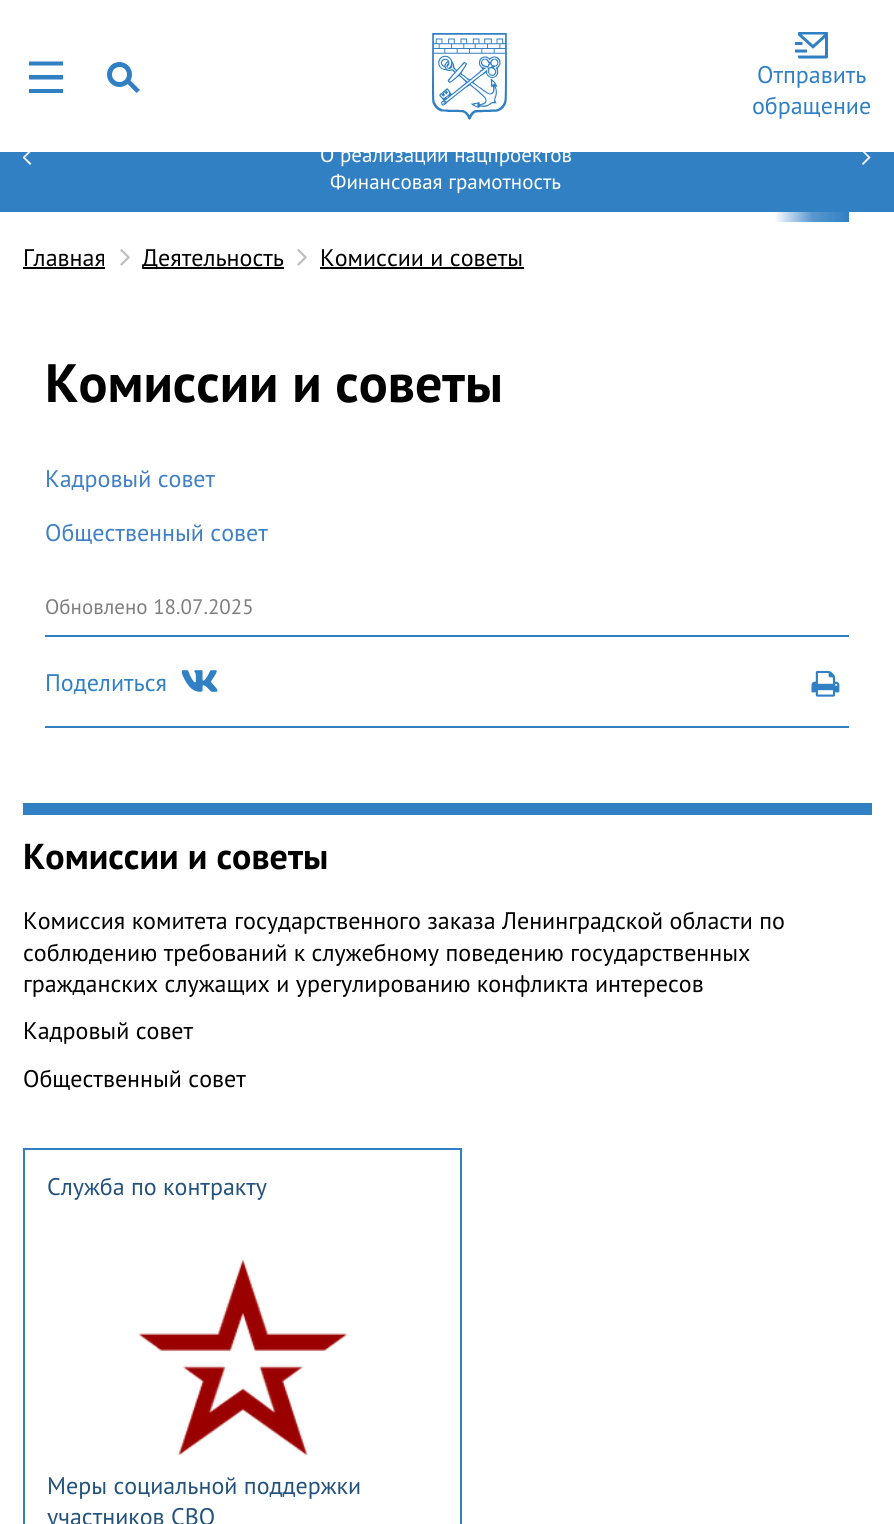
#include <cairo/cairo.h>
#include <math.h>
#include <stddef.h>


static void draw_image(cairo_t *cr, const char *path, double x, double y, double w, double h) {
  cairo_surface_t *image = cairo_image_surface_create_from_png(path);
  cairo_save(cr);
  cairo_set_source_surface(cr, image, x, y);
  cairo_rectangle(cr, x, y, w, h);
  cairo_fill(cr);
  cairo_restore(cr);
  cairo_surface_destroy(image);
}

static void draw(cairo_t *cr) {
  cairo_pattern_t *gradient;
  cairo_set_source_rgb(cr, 1, 1, 1);
  cairo_paint(cr);
  cairo_save(cr);
  cairo_rectangle(cr, 29, 59, 34, 37);
  cairo_clip(cr);
  cairo_set_source_rgb(cr, 49 / 255.0, 128 / 255.0, 196 / 255.0);
  cairo_set_fill_rule(cr, CAIRO_FILL_RULE_EVEN_ODD);
  cairo_new_path(cr);
  cairo_move_to(cr, 28.5, 61.5);
  cairo_line_to(cr, 63, 61.5);
  cairo_line_to(cr, 63, 65.5);
  cairo_line_to(cr, 28.5, 65.5);
  cairo_close_path(cr);
  cairo_move_to(cr, 28.5, 75);
  cairo_line_to(cr, 63, 75);
  cairo_line_to(cr, 63, 79.5);
  cairo_line_to(cr, 28.5, 79.5);
  cairo_close_path(cr);
  cairo_move_to(cr, 28.5, 89);
  cairo_line_to(cr, 63, 89);
  cairo_line_to(cr, 63, 93);
  cairo_line_to(cr, 28.5, 93);
  cairo_close_path(cr);
  cairo_fill(cr);
  cairo_restore(cr);
  cairo_set_source_rgb(cr, 49 / 255.0, 128 / 255.0, 196 / 255.0);
  cairo_new_path(cr);
  cairo_move_to(cr, 113.5, 63.5);
  cairo_line_to(cr, 140, 90);
  cairo_line_to(cr, 136.5, 93);
  cairo_line_to(cr, 110, 66.5);
  cairo_close_path(cr);
  cairo_fill(cr);
  cairo_set_source_rgb(cr, 1, 1, 1);
  cairo_arc(cr, 119.5, 74.5, 10, 0, 2 * M_PI);
  cairo_fill_preserve(cr);
  cairo_set_source_rgb(cr, 49 / 255.0, 128 / 255.0, 196 / 255.0);
  cairo_set_line_width(cr, 5);
  cairo_stroke(cr);
  draw_image(cr, "images/1.png", 432, 33, 75, 87);
  draw_image(cr, "images/2.png", 795, 32, 33, 27);
  cairo_rectangle(cr, 0, 152, 894, 60);
  cairo_fill(cr);
  draw_image(cr, "images/3.png", 23, 152, 9, 13);
  gradient = cairo_pattern_create_linear(774, 210, 849, 210);
  cairo_pattern_add_color_stop_rgba(gradient, 0, 49 / 255.0, 128 / 255.0, 196 / 255.0, 0);
  cairo_pattern_add_color_stop_rgba(gradient, 0.51, 49 / 255.0, 128 / 255.0, 196 / 255.0, 0.81);
  cairo_pattern_add_color_stop_rgba(gradient, 1, 49 / 255.0, 128 / 255.0, 196 / 255.0, 1);
  cairo_set_source(cr, gradient);
  cairo_pattern_destroy(gradient);
  cairo_rectangle(cr, 775, 212, 74, 10);
  cairo_fill(cr);
  draw_image(cr, "images/4.png", 861, 152, 10, 13);
  cairo_set_source_rgb(cr, 0, 0, 0);
  cairo_rectangle(cr, 23, 267, 82, 2);
  cairo_fill(cr);
  draw_image(cr, "images/5.png", 120, 249, 10, 17);
  cairo_rectangle(cr, 143, 267, 141, 2);
  cairo_fill(cr);
  draw_image(cr, "images/5.png", 297, 249, 10, 17);
  cairo_rectangle(cr, 320, 267, 204, 2);
  cairo_fill(cr);
  cairo_set_source_rgb(cr, 49 / 255.0, 128 / 255.0, 196 / 255.0);
  cairo_rectangle(cr, 45, 635, 804, 2);
  cairo_fill(cr);
  cairo_rectangle(cr, 45, 726, 804, 2);
  cairo_fill(cr);
  draw_image(cr, "images/6.png", 182, 670, 36, 22);
  draw_image(cr, "images/7.png", 811, 670, 29, 27);
  cairo_rectangle(cr, 23, 803, 849, 12);
  cairo_fill(cr);
  cairo_rectangle(cr, 24, 1149, 437, 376);
  cairo_set_line_width(cr, 2);
  cairo_stroke(cr);
  draw_image(cr, "images/8.png", 139, 1260, 208, 195);
  cairo_select_font_face(cr, "PT Sans", CAIRO_FONT_SLANT_NORMAL, CAIRO_FONT_WEIGHT_NORMAL);
  cairo_set_font_size(cr, 24);
  cairo_move_to(cr, 757, 83);
  cairo_show_text(cr, "Отправить");
  cairo_move_to(cr, 752, 114);
  cairo_show_text(cr, "обращение");
  cairo_set_font_size(cr, 21);
  cairo_set_source_rgb(cr, 1, 1, 1);
  cairo_move_to(cr, 320, 162);
  cairo_show_text(cr, "О реализации нацпроектов");
  cairo_move_to(cr, 330, 189);
  cairo_show_text(cr, "Финансовая грамотность");
  cairo_set_font_size(cr, 24);
  cairo_set_source_rgb(cr, 0, 0, 0);
  cairo_move_to(cr, 23, 266);
  cairo_show_text(cr, "Главная");
  cairo_move_to(cr, 142, 266);
  cairo_show_text(cr, "Деятельность");
  cairo_move_to(cr, 320, 266);
  cairo_show_text(cr, "Комиссии и советы");
  cairo_select_font_face(cr, "PT Sans", CAIRO_FONT_SLANT_NORMAL, CAIRO_FONT_WEIGHT_BOLD);
  cairo_set_font_size(cr, 54);
  cairo_move_to(cr, 45, 402);
  cairo_show_text(cr, "Комиссии и советы");
  cairo_select_font_face(cr, "PT Sans", CAIRO_FONT_SLANT_NORMAL, CAIRO_FONT_WEIGHT_NORMAL);
  cairo_set_font_size(cr, 24);
  cairo_set_source_rgb(cr, 64 / 255.0, 128 / 255.0, 198 / 255.0);
  cairo_move_to(cr, 45, 487);
  cairo_show_text(cr, "Кадровый совет");
  cairo_move_to(cr, 45, 541);
  cairo_show_text(cr, "Общественный совет");
  cairo_set_font_size(cr, 21);
  cairo_set_source_rgb(cr, 127 / 255.0, 127 / 255.0, 127 / 255.0);
  cairo_move_to(cr, 45, 614);
  cairo_show_text(cr, "Обновлено 18.07.2025");
  cairo_set_font_size(cr, 24);
  cairo_set_source_rgb(cr, 49 / 255.0, 128 / 255.0, 196 / 255.0);
  cairo_move_to(cr, 45, 691);
  cairo_show_text(cr, "Поделиться");
  cairo_select_font_face(cr, "PT Sans", CAIRO_FONT_SLANT_NORMAL, CAIRO_FONT_WEIGHT_BOLD);
  cairo_set_font_size(cr, 36);
  cairo_set_source_rgb(cr, 0, 0, 0);
  cairo_move_to(cr, 23, 869);
  cairo_show_text(cr, "Комиссии и советы");
  cairo_select_font_face(cr, "PT Sans", CAIRO_FONT_SLANT_NORMAL, CAIRO_FONT_WEIGHT_NORMAL);
  cairo_set_font_size(cr, 24);
  cairo_move_to(cr, 23, 929);
  cairo_show_text(cr, "Комиссия комитета государственного заказа Ленинградской области по");
  cairo_move_to(cr, 23, 961);
  cairo_show_text(cr, "соблюдению требований к служебному поведению государственных");
  cairo_move_to(cr, 23, 992);
  cairo_show_text(cr, "гражданских служащих и урегулированию конфликта интересов");
  cairo_move_to(cr, 23, 1039);
  cairo_show_text(cr, "Кадровый совет");
  cairo_move_to(cr, 23, 1087);
  cairo_show_text(cr, "Общественный совет");
  cairo_set_source_rgb(cr, 35 / 255.0, 83 / 255.0, 125 / 255.0);
  cairo_move_to(cr, 47, 1195);
  cairo_show_text(cr, "Служба по контракту");
  cairo_move_to(cr, 47, 1494);
  cairo_show_text(cr, "Меры социальной поддержки");
  cairo_move_to(cr, 47, 1525);
  cairo_show_text(cr, "участников СВО");
}

int main(void) {
  cairo_surface_t *surface = cairo_image_surface_create(CAIRO_FORMAT_RGB24, 894, 1524);
  cairo_t *cr = cairo_create(surface);
  cairo_font_options_t *options = cairo_font_options_create();
  cairo_font_options_set_hint_metrics(options, CAIRO_HINT_METRICS_OFF);
  cairo_font_options_set_hint_style(options, CAIRO_HINT_STYLE_NONE);
  cairo_set_font_options(cr, options);
  cairo_set_miter_limit(cr, 4);
  draw(cr);
  cairo_surface_write_to_png(surface, "out.png");
  cairo_font_options_destroy(options);
  cairo_destroy(cr);
  cairo_surface_destroy(surface);
  return 0;
}
